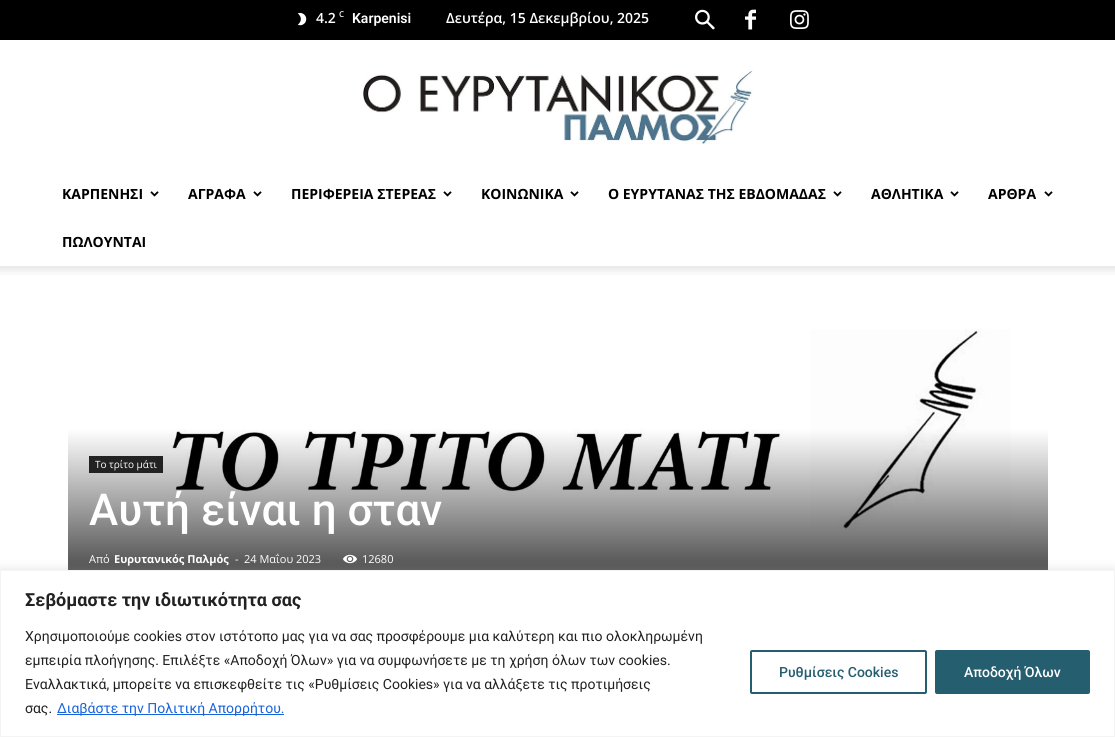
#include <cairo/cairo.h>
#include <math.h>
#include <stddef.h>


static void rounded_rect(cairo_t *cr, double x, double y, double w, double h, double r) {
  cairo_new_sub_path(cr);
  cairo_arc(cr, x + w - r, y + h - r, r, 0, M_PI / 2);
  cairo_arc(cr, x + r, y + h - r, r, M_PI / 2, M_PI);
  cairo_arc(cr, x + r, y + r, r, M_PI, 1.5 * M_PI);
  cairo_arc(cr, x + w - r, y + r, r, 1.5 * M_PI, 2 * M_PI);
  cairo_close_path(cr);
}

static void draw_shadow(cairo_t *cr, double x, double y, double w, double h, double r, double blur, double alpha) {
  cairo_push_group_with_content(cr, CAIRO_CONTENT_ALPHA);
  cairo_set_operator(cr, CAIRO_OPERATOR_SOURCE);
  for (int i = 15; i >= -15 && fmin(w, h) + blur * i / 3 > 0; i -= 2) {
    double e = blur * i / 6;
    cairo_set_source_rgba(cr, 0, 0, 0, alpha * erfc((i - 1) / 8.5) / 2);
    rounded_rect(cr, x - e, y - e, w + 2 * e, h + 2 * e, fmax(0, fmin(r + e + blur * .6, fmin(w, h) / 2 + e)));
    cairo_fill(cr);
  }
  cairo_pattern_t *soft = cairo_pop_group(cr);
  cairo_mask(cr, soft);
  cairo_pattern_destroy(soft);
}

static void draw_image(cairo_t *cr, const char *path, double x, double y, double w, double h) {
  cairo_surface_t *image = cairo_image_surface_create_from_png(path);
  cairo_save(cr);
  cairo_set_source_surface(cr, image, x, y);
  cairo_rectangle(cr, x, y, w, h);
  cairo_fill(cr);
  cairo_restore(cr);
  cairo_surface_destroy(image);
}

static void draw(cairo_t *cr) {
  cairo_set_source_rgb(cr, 1, 1, 1);
  cairo_paint(cr);
  cairo_set_source_rgb(cr, 0, 0, 0);
  cairo_rectangle(cr, 0, 0, 1115, 40);
  cairo_fill(cr);
  draw_image(cr, "images/1.png", 297, 12, 10, 14);
  draw_image(cr, "images/2.png", 695, 9, 20, 21);
  draw_image(cr, "images/3.png", 745, 9, 11, 21);
  draw_image(cr, "images/4.png", 790, 10, 19, 19);
  draw_image(cr, "images/5.png", 363, 69, 390, 75);
  draw_image(cr, "images/6.png", 150, 191, 9, 6);
  draw_image(cr, "images/6.png", 253, 191, 9, 6);
  draw_image(cr, "images/6.png", 443, 191, 9, 6);
  draw_image(cr, "images/6.png", 570, 191, 9, 6);
  draw_image(cr, "images/6.png", 833, 191, 9, 6);
  draw_image(cr, "images/6.png", 950, 191, 9, 6);
  draw_image(cr, "images/6.png", 1044, 191, 9, 6);
  draw_image(cr, "images/8.png", 68, 266, 980, 304);
  draw_image(cr, "images/7.png", 0, 266, 1115, 9);
  cairo_set_source_rgb(cr, 34 / 255.0, 34 / 255.0, 34 / 255.0);
  cairo_rectangle(cr, 89, 456, 74, 17);
  cairo_fill(cr);
  draw_image(cr, "images/9.png", 343, 554, 14, 10);
  cairo_set_source_rgb(cr, 172 / 255.0, 171 / 255.0, 171 / 255.0);
  draw_shadow(cr, 0, 569, 1115, 167, 0, 5, 0.3);
  cairo_set_source_rgb(cr, 1, 1, 1);
  cairo_rectangle(cr, 0.5, 570.5, 1114, 166);
  cairo_fill_preserve(cr);
  cairo_set_source_rgb(cr, 244 / 255.0, 244 / 255.0, 244 / 255.0);
  cairo_set_line_width(cr, 1);
  cairo_stroke(cr);
  cairo_set_source_rgb(cr, 24 / 255.0, 99 / 255.0, 220 / 255.0);
  cairo_rectangle(cr, 57, 714, 227, 1);
  cairo_fill(cr);
  rounded_rect(cr, 751, 651, 175, 42, 1);
  cairo_set_source_rgb(cr, 37 / 255.0, 94 / 255.0, 111 / 255.0);
  cairo_set_line_width(cr, 2);
  cairo_stroke(cr);
  rounded_rect(cr, 936, 651, 153, 42, 1);
  cairo_fill_preserve(cr);
  cairo_stroke(cr);
  cairo_select_font_face(cr, "Open Sans SemiBold", CAIRO_FONT_SLANT_NORMAL, CAIRO_FONT_WEIGHT_NORMAL);
  cairo_set_font_size(cr, 14);
  cairo_set_source_rgb(cr, 1, 1, 1);
  cairo_move_to(cr, 316, 23);
  cairo_show_text(cr, "4.2");
  cairo_set_font_size(cr, 8);
  cairo_move_to(cr, 339, 17);
  cairo_show_text(cr, "C");
  cairo_select_font_face(cr, "Roboto SemiBold", CAIRO_FONT_SLANT_NORMAL, CAIRO_FONT_WEIGHT_NORMAL);
  cairo_set_font_size(cr, 14);
  cairo_move_to(cr, 352, 23);
  cairo_show_text(cr, "Karpenisi");
  cairo_select_font_face(cr, "Open Sans SemiBold", CAIRO_FONT_SLANT_NORMAL, CAIRO_FONT_WEIGHT_NORMAL);
  cairo_move_to(cr, 446, 23);
  cairo_show_text(cr, "Δευτέρα, 15 Δεκεμβρίου, 2025");
  cairo_select_font_face(cr, "Open Sans", CAIRO_FONT_SLANT_NORMAL, CAIRO_FONT_WEIGHT_BOLD);
  cairo_set_source_rgb(cr, 0, 0, 0);
  cairo_move_to(cr, 62, 199);
  cairo_show_text(cr, "ΚΑΡΠΕΝΗΣΙ");
  cairo_move_to(cr, 188, 199);
  cairo_show_text(cr, "ΑΓΡΑΦΑ");
  cairo_move_to(cr, 291, 199);
  cairo_show_text(cr, "ΠΕΡΙΦΕΡΕΙΑ ΣΤΕΡΕΑΣ");
  cairo_move_to(cr, 481, 199);
  cairo_show_text(cr, "ΚΟΙΝΩΝΙΚΑ");
  cairo_move_to(cr, 608, 199);
  cairo_show_text(cr, "Ο ΕΥΡΥΤΑΝΑΣ ΤΗΣ ΕΒΔΟΜΑΔΑΣ");
  cairo_move_to(cr, 871, 199);
  cairo_show_text(cr, "ΑΘΛΗΤΙΚΑ");
  cairo_move_to(cr, 988, 199);
  cairo_show_text(cr, "ΑΡΘΡΑ");
  cairo_move_to(cr, 62, 247);
  cairo_show_text(cr, "ΠΩΛΟΥΝΤΑΙ");
  cairo_select_font_face(cr, "Open Sans", CAIRO_FONT_SLANT_NORMAL, CAIRO_FONT_WEIGHT_NORMAL);
  cairo_set_font_size(cr, 10);
  cairo_set_source_rgb(cr, 1, 1, 1);
  cairo_move_to(cr, 95, 468);
  cairo_show_text(cr, "Το τρίτο μάτι");
  cairo_select_font_face(cr, "Roboto Medium", CAIRO_FONT_SLANT_NORMAL, CAIRO_FONT_WEIGHT_NORMAL);
  cairo_set_font_size(cr, 44);
  cairo_move_to(cr, 89, 525);
  cairo_show_text(cr, "Αυτή είναι η σταν");
  cairo_select_font_face(cr, "Open Sans", CAIRO_FONT_SLANT_NORMAL, CAIRO_FONT_WEIGHT_NORMAL);
  cairo_set_font_size(cr, 11);
  cairo_move_to(cr, 89, 563);
  cairo_show_text(cr, "Από");
  cairo_select_font_face(cr, "Open Sans", CAIRO_FONT_SLANT_NORMAL, CAIRO_FONT_WEIGHT_BOLD);
  cairo_move_to(cr, 114, 563);
  cairo_show_text(cr, "Ευρυτανικός Παλμός");
  cairo_select_font_face(cr, "Open Sans", CAIRO_FONT_SLANT_NORMAL, CAIRO_FONT_WEIGHT_NORMAL);
  cairo_move_to(cr, 235, 563);
  cairo_show_text(cr, "-");
  cairo_move_to(cr, 244, 563);
  cairo_show_text(cr, "24 Μαΐου 2023");
  cairo_move_to(cr, 362, 563);
  cairo_show_text(cr, "12680");
  cairo_select_font_face(cr, "Roboto", CAIRO_FONT_SLANT_NORMAL, CAIRO_FONT_WEIGHT_BOLD);
  cairo_set_font_size(cr, 18);
  cairo_set_source_rgb(cr, 33 / 255.0, 33 / 255.0, 33 / 255.0);
  cairo_move_to(cr, 25, 606);
  cairo_show_text(cr, "Σεβόμαστε την ιδιωτικότητα σας");
  cairo_select_font_face(cr, "Roboto", CAIRO_FONT_SLANT_NORMAL, CAIRO_FONT_WEIGHT_NORMAL);
  cairo_set_font_size(cr, 14);
  cairo_move_to(cr, 25, 641);
  cairo_show_text(cr, "Χρησιμοποιούμε cookies στον ιστότοπο μας για να σας προσφέρουμε μια καλύτερη και πιο ολοκληρωμένη");
  cairo_move_to(cr, 25, 665);
  cairo_show_text(cr, "εμπειρία πλοήγησης. Επιλέξτε «Αποδοχή Όλων» για να συμφωνήσετε με τη χρήση όλων των cookies.");
  cairo_move_to(cr, 25, 689);
  cairo_show_text(cr, "Εναλλακτικά, μπορείτε να επισκεφθείτε τις «Ρυθμίσεις Cookies» για να αλλάξετε τις προτιμήσεις");
  cairo_move_to(cr, 25, 713);
  cairo_show_text(cr, "σας.");
  cairo_set_source_rgb(cr, 24 / 255.0, 99 / 255.0, 220 / 255.0);
  cairo_move_to(cr, 57, 713);
  cairo_show_text(cr, "Διαβάστε την Πολιτική Απορρήτου.");
  cairo_select_font_face(cr, "Roboto Medium", CAIRO_FONT_SLANT_NORMAL, CAIRO_FONT_WEIGHT_NORMAL);
  cairo_set_source_rgb(cr, 37 / 255.0, 94 / 255.0, 111 / 255.0);
  cairo_move_to(cr, 779, 677);
  cairo_show_text(cr, "Ρυθμίσεις Cookies");
  cairo_set_source_rgb(cr, 1, 1, 1);
  cairo_move_to(cr, 964, 677);
  cairo_show_text(cr, "Αποδοχή Όλων");
}

int main(void) {
  cairo_surface_t *surface = cairo_image_surface_create(CAIRO_FORMAT_RGB24, 1115, 737);
  cairo_t *cr = cairo_create(surface);
  cairo_font_options_t *options = cairo_font_options_create();
  cairo_font_options_set_hint_metrics(options, CAIRO_HINT_METRICS_OFF);
  cairo_font_options_set_hint_style(options, CAIRO_HINT_STYLE_NONE);
  cairo_set_font_options(cr, options);
  cairo_set_miter_limit(cr, 4);
  draw(cr);
  cairo_surface_write_to_png(surface, "out.png");
  cairo_font_options_destroy(options);
  cairo_destroy(cr);
  cairo_surface_destroy(surface);
  return 0;
}
